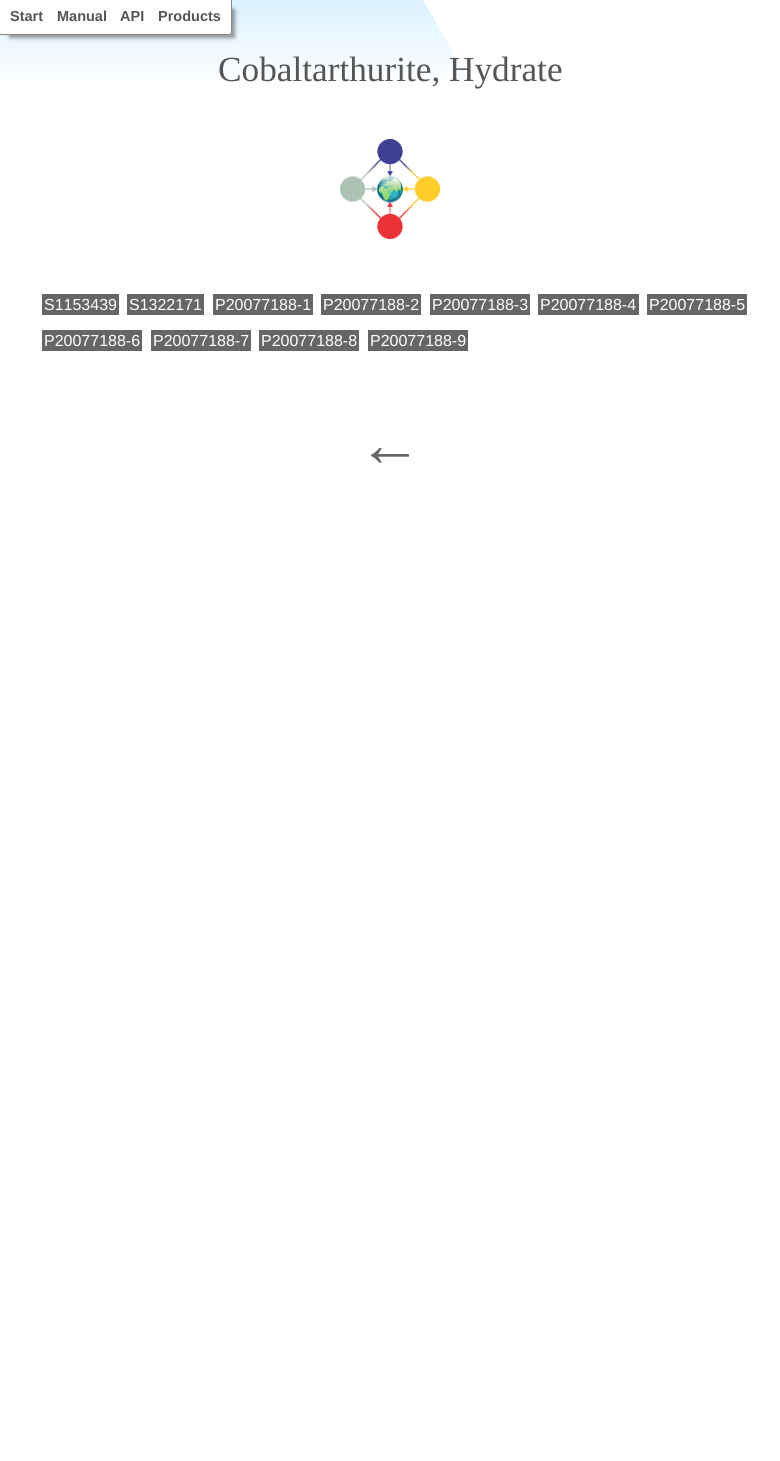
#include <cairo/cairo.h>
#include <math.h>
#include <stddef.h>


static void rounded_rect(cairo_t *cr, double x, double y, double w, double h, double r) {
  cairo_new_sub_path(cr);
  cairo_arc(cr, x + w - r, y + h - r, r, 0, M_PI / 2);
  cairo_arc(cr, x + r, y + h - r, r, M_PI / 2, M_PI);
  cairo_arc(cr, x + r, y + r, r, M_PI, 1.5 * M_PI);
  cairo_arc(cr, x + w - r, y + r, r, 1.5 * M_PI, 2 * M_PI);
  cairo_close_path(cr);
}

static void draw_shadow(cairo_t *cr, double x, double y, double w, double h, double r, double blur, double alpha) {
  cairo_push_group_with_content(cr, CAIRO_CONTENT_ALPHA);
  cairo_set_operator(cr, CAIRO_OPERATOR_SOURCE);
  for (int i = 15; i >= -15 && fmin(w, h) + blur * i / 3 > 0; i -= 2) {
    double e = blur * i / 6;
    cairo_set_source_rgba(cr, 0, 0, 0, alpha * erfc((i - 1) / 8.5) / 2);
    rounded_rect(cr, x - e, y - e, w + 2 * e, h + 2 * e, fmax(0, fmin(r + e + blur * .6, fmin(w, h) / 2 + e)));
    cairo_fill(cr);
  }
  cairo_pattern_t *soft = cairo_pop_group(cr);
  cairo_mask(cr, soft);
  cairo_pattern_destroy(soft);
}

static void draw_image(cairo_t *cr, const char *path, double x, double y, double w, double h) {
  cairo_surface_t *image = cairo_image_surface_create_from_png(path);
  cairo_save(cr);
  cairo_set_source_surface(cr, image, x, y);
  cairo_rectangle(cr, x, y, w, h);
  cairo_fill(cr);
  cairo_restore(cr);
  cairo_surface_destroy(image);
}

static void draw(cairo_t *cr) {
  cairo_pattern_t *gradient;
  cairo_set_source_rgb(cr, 1, 1, 1);
  cairo_paint(cr);
  gradient = cairo_pattern_create_linear(390, 0, 390, 1461);
  cairo_pattern_add_color_stop_rgba(gradient, 0, 219 / 255.0, 242 / 255.0, 1, 1);
  cairo_pattern_add_color_stop_rgba(gradient, 0.06, 1, 1, 1, 1);
  cairo_set_source(cr, gradient);
  cairo_pattern_destroy(gradient);
  cairo_rectangle(cr, 0, 0, 780, 82);
  cairo_fill(cr);
  gradient = cairo_pattern_create_linear(-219, 1082, 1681, -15);
  cairo_pattern_add_color_stop_rgba(gradient, 0, 1, 1, 1, 1);
  cairo_pattern_add_color_stop_rgba(gradient, 0.28, 1, 1, 1, 1);
  cairo_pattern_add_color_stop_rgba(gradient, 0.28, 1, 1, 1, 0);
  cairo_pattern_add_color_stop_rgba(gradient, 0.5, 1, 1, 1, 0);
  cairo_pattern_add_color_stop_rgba(gradient, 0.5, 1, 1, 1, 1);
  cairo_pattern_add_color_stop_rgba(gradient, 0.78, 1, 1, 1, 1);
  cairo_pattern_add_color_stop_rgba(gradient, 0.78, 1, 1, 1, 0);
  cairo_pattern_add_color_stop_rgba(gradient, 1, 1, 1, 1, 0);
  cairo_set_source(cr, gradient);
  cairo_pattern_destroy(gradient);
  cairo_rectangle(cr, 423, 0, 357, 82);
  cairo_fill(cr);
  cairo_set_source_rgb(cr, 0, 0, 0);
  draw_shadow(cr, 9, 9, 226, 29, 1, 2, 0.4);
  cairo_set_source_rgb(cr, 1, 1, 1);
  cairo_new_path(cr);
  cairo_move_to(cr, 0, 0);
  cairo_line_to(cr, 232, 0);
  cairo_line_to(cr, 232, 31);
  cairo_curve_to(cr, 232, 33, 230, 35, 228, 35);
  cairo_line_to(cr, 0, 35);
  cairo_close_path(cr);
  cairo_fill(cr);
  cairo_set_source_rgb(cr, 136 / 255.0, 136 / 255.0, 136 / 255.0);
  cairo_set_fill_rule(cr, CAIRO_FILL_RULE_EVEN_ODD);
  cairo_new_path(cr);
  cairo_move_to(cr, 0, 0);
  cairo_line_to(cr, 232, 0);
  cairo_line_to(cr, 232, 31);
  cairo_curve_to(cr, 232, 33, 230, 35, 228, 35);
  cairo_line_to(cr, 0, 35);
  cairo_close_path(cr);
  cairo_move_to(cr, 0, 0);
  cairo_line_to(cr, 231, 0);
  cairo_line_to(cr, 231, 31);
  cairo_curve_to(cr, 231, 33, 230, 34, 228, 34);
  cairo_line_to(cr, 0, 34);
  cairo_close_path(cr);
  cairo_fill(cr);
  draw_image(cr, "images/1.png", 340, 139, 100, 100);
  cairo_set_source_rgb(cr, 102 / 255.0, 102 / 255.0, 102 / 255.0);
  cairo_rectangle(cr, 42, 294, 77, 21);
  cairo_fill(cr);
  cairo_rectangle(cr, 127, 294, 77, 21);
  cairo_fill(cr);
  cairo_rectangle(cr, 213, 294, 100, 21);
  cairo_fill(cr);
  cairo_rectangle(cr, 321, 294, 100, 21);
  cairo_fill(cr);
  cairo_rectangle(cr, 430, 294, 100, 21);
  cairo_fill(cr);
  cairo_rectangle(cr, 538, 294, 101, 21);
  cairo_fill(cr);
  cairo_rectangle(cr, 647, 294, 100, 21);
  cairo_fill(cr);
  cairo_rectangle(cr, 42, 330, 100, 21);
  cairo_fill(cr);
  cairo_rectangle(cr, 151, 330, 100, 21);
  cairo_fill(cr);
  cairo_rectangle(cr, 259, 330, 100, 21);
  cairo_fill(cr);
  cairo_rectangle(cr, 368, 330, 100, 21);
  cairo_fill(cr);
  cairo_select_font_face(cr, "Liberation Sans", CAIRO_FONT_SLANT_NORMAL, CAIRO_FONT_WEIGHT_BOLD);
  cairo_set_font_size(cr, 14.5);
  cairo_set_source_rgb(cr, 85 / 255.0, 85 / 255.0, 85 / 255.0);
  cairo_move_to(cr, 10, 21);
  cairo_show_text(cr, "Start");
  cairo_move_to(cr, 57, 21);
  cairo_show_text(cr, "Manual");
  cairo_move_to(cr, 120, 21);
  cairo_show_text(cr, "API");
  cairo_move_to(cr, 158, 21);
  cairo_show_text(cr, "Products");
  cairo_select_font_face(cr, "Liberation Serif", CAIRO_FONT_SLANT_NORMAL, CAIRO_FONT_WEIGHT_NORMAL);
  cairo_set_font_size(cr, 35.25);
  cairo_move_to(cr, 218, 81);
  cairo_show_text(cr, "Cobaltarthurite, Hydrate");
  cairo_select_font_face(cr, "Liberation Sans", CAIRO_FONT_SLANT_NORMAL, CAIRO_FONT_WEIGHT_NORMAL);
  cairo_set_font_size(cr, 16);
  cairo_set_source_rgb(cr, 1, 1, 1);
  cairo_move_to(cr, 44, 310);
  cairo_show_text(cr, "S1153439");
  cairo_move_to(cr, 129, 310);
  cairo_show_text(cr, "S1322171");
  cairo_move_to(cr, 215, 310);
  cairo_show_text(cr, "P20077188-1");
  cairo_move_to(cr, 323, 310);
  cairo_show_text(cr, "P20077188-2");
  cairo_move_to(cr, 432, 310);
  cairo_show_text(cr, "P20077188-3");
  cairo_move_to(cr, 540, 310);
  cairo_show_text(cr, "P20077188-4");
  cairo_move_to(cr, 649, 310);
  cairo_show_text(cr, "P20077188-5");
  cairo_move_to(cr, 44, 346);
  cairo_show_text(cr, "P20077188-6");
  cairo_move_to(cr, 153, 346);
  cairo_show_text(cr, "P20077188-7");
  cairo_move_to(cr, 261, 346);
  cairo_show_text(cr, "P20077188-8");
  cairo_move_to(cr, 370, 346);
  cairo_show_text(cr, "P20077188-9");
  cairo_set_font_size(cr, 64);
  cairo_set_source_rgb(cr, 102 / 255.0, 102 / 255.0, 102 / 255.0);
  cairo_move_to(cr, 358, 466);
  cairo_show_text(cr, "←");
}

int main(void) {
  cairo_surface_t *surface = cairo_image_surface_create(CAIRO_FORMAT_RGB24, 780, 1461);
  cairo_t *cr = cairo_create(surface);
  cairo_font_options_t *options = cairo_font_options_create();
  cairo_font_options_set_hint_metrics(options, CAIRO_HINT_METRICS_OFF);
  cairo_font_options_set_hint_style(options, CAIRO_HINT_STYLE_NONE);
  cairo_set_font_options(cr, options);
  cairo_set_miter_limit(cr, 4);
  draw(cr);
  cairo_surface_write_to_png(surface, "out.png");
  cairo_font_options_destroy(options);
  cairo_destroy(cr);
  cairo_surface_destroy(surface);
  return 0;
}
